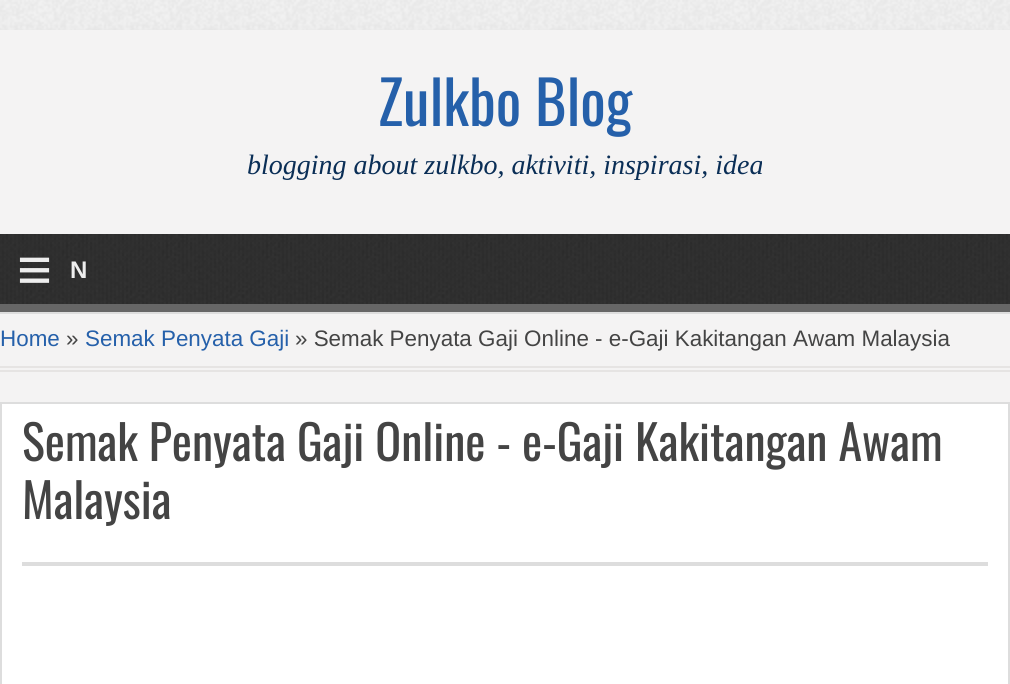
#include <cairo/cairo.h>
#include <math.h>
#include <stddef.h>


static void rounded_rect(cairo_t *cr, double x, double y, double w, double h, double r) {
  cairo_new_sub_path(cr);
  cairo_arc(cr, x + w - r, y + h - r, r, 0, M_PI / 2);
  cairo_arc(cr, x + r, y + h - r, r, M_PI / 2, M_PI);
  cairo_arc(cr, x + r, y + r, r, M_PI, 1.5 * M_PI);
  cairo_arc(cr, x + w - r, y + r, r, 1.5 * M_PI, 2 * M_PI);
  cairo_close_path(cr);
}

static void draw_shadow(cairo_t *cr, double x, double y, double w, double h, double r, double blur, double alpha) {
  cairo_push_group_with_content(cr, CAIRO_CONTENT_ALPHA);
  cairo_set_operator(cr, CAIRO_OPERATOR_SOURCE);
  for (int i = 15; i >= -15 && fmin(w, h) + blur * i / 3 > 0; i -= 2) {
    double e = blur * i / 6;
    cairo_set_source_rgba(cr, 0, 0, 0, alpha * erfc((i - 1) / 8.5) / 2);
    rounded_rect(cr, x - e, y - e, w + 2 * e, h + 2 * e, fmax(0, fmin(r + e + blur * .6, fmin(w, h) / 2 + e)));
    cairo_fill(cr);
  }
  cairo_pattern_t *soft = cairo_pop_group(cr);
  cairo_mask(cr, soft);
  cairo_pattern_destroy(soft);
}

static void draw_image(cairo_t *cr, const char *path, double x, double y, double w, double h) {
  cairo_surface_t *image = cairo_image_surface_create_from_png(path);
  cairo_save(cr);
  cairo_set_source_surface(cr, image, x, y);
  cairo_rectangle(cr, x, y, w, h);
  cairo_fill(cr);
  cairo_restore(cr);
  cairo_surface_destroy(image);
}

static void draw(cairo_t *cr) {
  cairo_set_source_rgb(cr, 1, 1, 1);
  cairo_paint(cr);
  draw_image(cr, "images/1.png", 0, 0, 1010, 30);
  cairo_set_source_rgb(cr, 102 / 255.0, 102 / 255.0, 102 / 255.0);
  draw_shadow(cr, 0, 50, 1010, 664, 0, 10, 1);
  cairo_set_source_rgb(cr, 244 / 255.0, 243 / 255.0, 243 / 255.0);
  cairo_rectangle(cr, 0, 30, 1010, 372);
  cairo_fill(cr);
  draw_image(cr, "images/2.png", 0, 234, 1010, 70);
  cairo_set_source_rgb(cr, 102 / 255.0, 102 / 255.0, 102 / 255.0);
  cairo_rectangle(cr, 0, 304, 1010, 8);
  cairo_fill(cr);
  cairo_set_source_rgb(cr, 221 / 255.0, 221 / 255.0, 221 / 255.0);
  cairo_rectangle(cr, 0, 312, 1010, 2);
  cairo_fill(cr);
  cairo_set_source_rgb(cr, 230 / 255.0, 228 / 255.0, 227 / 255.0);
  cairo_rectangle(cr, 0, 366, 1010, 2);
  cairo_fill(cr);
  cairo_rectangle(cr, 0, 370, 1010, 2);
  cairo_fill(cr);
  cairo_set_source_rgb(cr, 1, 1, 1);
  cairo_rectangle(cr, 1, 403, 1008, 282);
  cairo_fill_preserve(cr);
  cairo_set_source_rgb(cr, 221 / 255.0, 221 / 255.0, 221 / 255.0);
  cairo_stroke(cr);
  cairo_rectangle(cr, 22, 562, 966, 4);
  cairo_fill(cr);
  cairo_select_font_face(cr, "Oswald", CAIRO_FONT_SLANT_NORMAL, CAIRO_FONT_WEIGHT_NORMAL);
  cairo_set_font_size(cr, 60);
  cairo_set_source_rgb(cr, 37 / 255.0, 96 / 255.0, 170 / 255.0);
  cairo_move_to(cr, 378, 126);
  cairo_show_text(cr, "Zulkbo Blog");
  cairo_select_font_face(cr, "Liberation Serif", CAIRO_FONT_SLANT_ITALIC, CAIRO_FONT_WEIGHT_NORMAL);
  cairo_set_font_size(cr, 28);
  cairo_set_source_rgb(cr, 10 / 255.0, 46 / 255.0, 86 / 255.0);
  cairo_move_to(cr, 247, 174);
  cairo_show_text(cr, "blogging about zulkbo, aktiviti, inspirasi, idea");
  cairo_select_font_face(cr, "Liberation Sans", CAIRO_FONT_SLANT_NORMAL, CAIRO_FONT_WEIGHT_BOLD);
  cairo_set_font_size(cr, 60);
  cairo_set_source_rgb(cr, 238 / 255.0, 238 / 255.0, 238 / 255.0);
  cairo_move_to(cr, 17, 290);
  cairo_show_text(cr, "≡");
  cairo_set_font_size(cr, 24);
  cairo_move_to(cr, 70, 278);
  cairo_show_text(cr, "N");
  cairo_select_font_face(cr, "Liberation Sans", CAIRO_FONT_SLANT_NORMAL, CAIRO_FONT_WEIGHT_NORMAL);
  cairo_set_font_size(cr, 22.4);
  cairo_set_source_rgb(cr, 37 / 255.0, 96 / 255.0, 170 / 255.0);
  cairo_move_to(cr, 0, 346);
  cairo_show_text(cr, "Home");
  cairo_set_source_rgb(cr, 68 / 255.0, 68 / 255.0, 68 / 255.0);
  cairo_move_to(cr, 66, 346);
  cairo_show_text(cr, "»");
  cairo_set_source_rgb(cr, 37 / 255.0, 96 / 255.0, 170 / 255.0);
  cairo_move_to(cr, 85, 346);
  cairo_show_text(cr, "Semak Penyata Gaji");
  cairo_set_source_rgb(cr, 68 / 255.0, 68 / 255.0, 68 / 255.0);
  cairo_move_to(cr, 295, 346);
  cairo_show_text(cr, "» Semak Penyata Gaji Online - e-Gaji Kakitangan Awam Malaysia");
  cairo_select_font_face(cr, "Oswald", CAIRO_FONT_SLANT_NORMAL, CAIRO_FONT_WEIGHT_NORMAL);
  cairo_set_font_size(cr, 48);
  cairo_move_to(cr, 22, 461);
  cairo_show_text(cr, "Semak Penyata Gaji Online - e-Gaji Kakitangan Awam");
  cairo_move_to(cr, 22, 519);
  cairo_show_text(cr, "Malaysia");
}

int main(void) {
  cairo_surface_t *surface = cairo_image_surface_create(CAIRO_FORMAT_RGB24, 1010, 684);
  cairo_t *cr = cairo_create(surface);
  cairo_font_options_t *options = cairo_font_options_create();
  cairo_font_options_set_hint_metrics(options, CAIRO_HINT_METRICS_OFF);
  cairo_font_options_set_hint_style(options, CAIRO_HINT_STYLE_NONE);
  cairo_set_font_options(cr, options);
  cairo_set_miter_limit(cr, 4);
  draw(cr);
  cairo_surface_write_to_png(surface, "out.png");
  cairo_font_options_destroy(options);
  cairo_destroy(cr);
  cairo_surface_destroy(surface);
  return 0;
}
